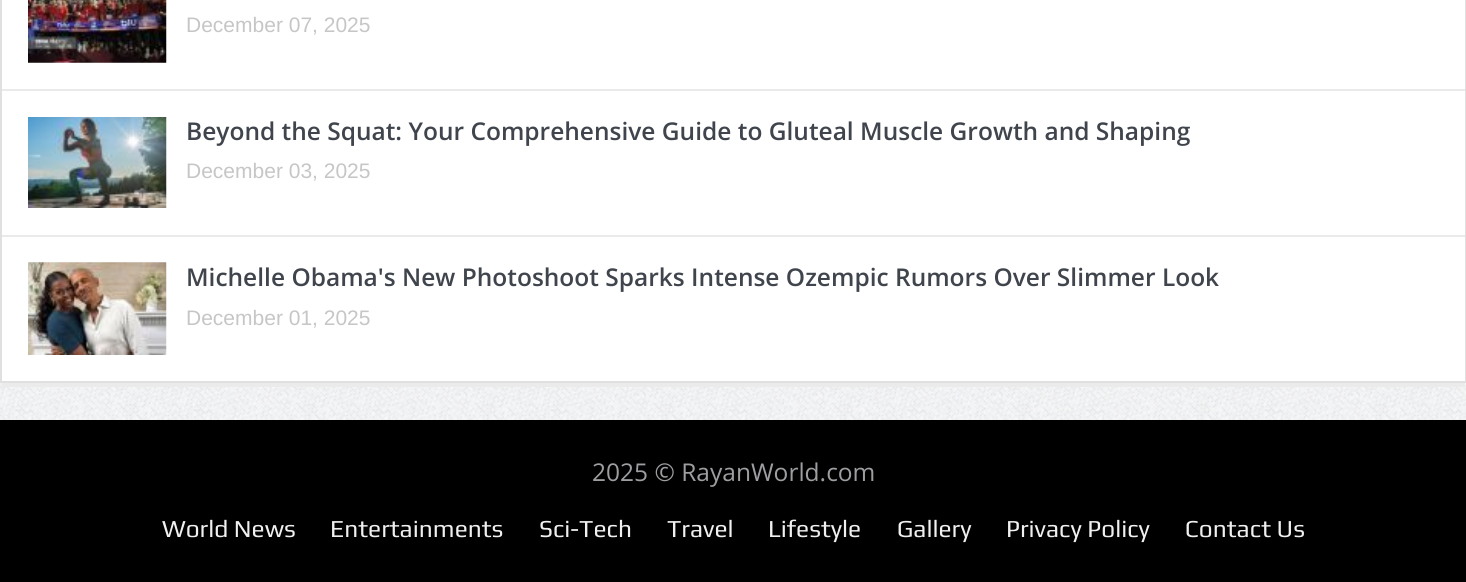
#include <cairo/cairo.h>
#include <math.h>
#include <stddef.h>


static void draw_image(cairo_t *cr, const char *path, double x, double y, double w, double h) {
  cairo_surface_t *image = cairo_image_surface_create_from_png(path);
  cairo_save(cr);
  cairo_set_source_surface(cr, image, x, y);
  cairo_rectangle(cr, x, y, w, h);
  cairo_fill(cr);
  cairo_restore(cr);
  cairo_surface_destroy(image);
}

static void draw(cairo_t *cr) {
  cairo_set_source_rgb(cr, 1, 1, 1);
  cairo_paint(cr);
  draw_image(cr, "images/1.png", 0, 383, 1466, 37);
  cairo_rectangle(cr, 1, -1, 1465, 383);
  cairo_set_source_rgb(cr, 224 / 255.0, 224 / 255.0, 224 / 255.0);
  cairo_stroke(cr);
  cairo_set_source_rgb(cr, 234 / 255.0, 234 / 255.0, 234 / 255.0);
  cairo_rectangle(cr, 2, 89, 1463, 2);
  cairo_fill(cr);
  draw_image(cr, "images/2.png", 28, 0, 139, 63);
  cairo_rectangle(cr, 2, 235, 1463, 2);
  cairo_fill(cr);
  draw_image(cr, "images/3.png", 28, 117, 139, 91);
  draw_image(cr, "images/4.png", 28, 262, 139, 93);
  cairo_set_source_rgb(cr, 235 / 255.0, 235 / 255.0, 235 / 255.0);
  cairo_rectangle(cr, 2, 383, 1463, 4);
  cairo_fill(cr);
  cairo_set_source_rgb(cr, 0, 0, 0);
  cairo_rectangle(cr, 0, 420, 1466, 162);
  cairo_fill(cr);
  cairo_select_font_face(cr, "Liberation Sans", CAIRO_FONT_SLANT_NORMAL, CAIRO_FONT_WEIGHT_NORMAL);
  cairo_set_font_size(cr, 21);
  cairo_set_source_rgb(cr, 198 / 255.0, 198 / 255.0, 198 / 255.0);
  cairo_move_to(cr, 186, 32);
  cairo_show_text(cr, "December 07, 2025");
  cairo_select_font_face(cr, "Open Sans SemiBold", CAIRO_FONT_SLANT_NORMAL, CAIRO_FONT_WEIGHT_NORMAL);
  cairo_set_font_size(cr, 24.5);
  cairo_set_source_rgb(cr, 64 / 255.0, 69 / 255.0, 77 / 255.0);
  cairo_move_to(cr, 186, 140);
  cairo_show_text(cr, "Beyond the Squat: Your Comprehensive Guide to Gluteal Muscle Growth and Shaping");
  cairo_select_font_face(cr, "Liberation Sans", CAIRO_FONT_SLANT_NORMAL, CAIRO_FONT_WEIGHT_NORMAL);
  cairo_set_font_size(cr, 21);
  cairo_set_source_rgb(cr, 198 / 255.0, 198 / 255.0, 198 / 255.0);
  cairo_move_to(cr, 186, 178);
  cairo_show_text(cr, "December 03, 2025");
  cairo_select_font_face(cr, "Open Sans SemiBold", CAIRO_FONT_SLANT_NORMAL, CAIRO_FONT_WEIGHT_NORMAL);
  cairo_set_font_size(cr, 24.5);
  cairo_set_source_rgb(cr, 64 / 255.0, 69 / 255.0, 77 / 255.0);
  cairo_move_to(cr, 186, 286);
  cairo_show_text(cr, "Michelle Obama's New Photoshoot Sparks Intense Ozempic Rumors Over Slimmer Look");
  cairo_select_font_face(cr, "Liberation Sans", CAIRO_FONT_SLANT_NORMAL, CAIRO_FONT_WEIGHT_NORMAL);
  cairo_set_font_size(cr, 21);
  cairo_set_source_rgb(cr, 198 / 255.0, 198 / 255.0, 198 / 255.0);
  cairo_move_to(cr, 186, 325);
  cairo_show_text(cr, "December 01, 2025");
  cairo_select_font_face(cr, "Open Sans", CAIRO_FONT_SLANT_NORMAL, CAIRO_FONT_WEIGHT_NORMAL);
  cairo_set_font_size(cr, 24.5);
  cairo_set_source_rgb(cr, 156 / 255.0, 158 / 255.0, 161 / 255.0);
  cairo_move_to(cr, 592, 481);
  cairo_show_text(cr, "2025 © RayanWorld.com");
  cairo_select_font_face(cr, "Play", CAIRO_FONT_SLANT_NORMAL, CAIRO_FONT_WEIGHT_NORMAL);
  cairo_set_source_rgb(cr, 240 / 255.0, 240 / 255.0, 240 / 255.0);
  cairo_move_to(cr, 162, 537);
  cairo_show_text(cr, "World News");
  cairo_move_to(cr, 330, 537);
  cairo_show_text(cr, "Entertainments");
  cairo_move_to(cr, 539, 537);
  cairo_show_text(cr, "Sci-Tech");
  cairo_move_to(cr, 667, 537);
  cairo_show_text(cr, "Travel");
  cairo_move_to(cr, 768, 537);
  cairo_show_text(cr, "Lifestyle");
  cairo_move_to(cr, 897, 537);
  cairo_show_text(cr, "Gallery");
  cairo_move_to(cr, 1006, 537);
  cairo_show_text(cr, "Privacy Policy");
  cairo_move_to(cr, 1185, 537);
  cairo_show_text(cr, "Contact Us");
}

int main(void) {
  cairo_surface_t *surface = cairo_image_surface_create(CAIRO_FORMAT_RGB24, 1466, 582);
  cairo_t *cr = cairo_create(surface);
  cairo_font_options_t *options = cairo_font_options_create();
  cairo_font_options_set_hint_metrics(options, CAIRO_HINT_METRICS_OFF);
  cairo_font_options_set_hint_style(options, CAIRO_HINT_STYLE_NONE);
  cairo_set_font_options(cr, options);
  cairo_set_miter_limit(cr, 4);
  draw(cr);
  cairo_surface_write_to_png(surface, "out.png");
  cairo_font_options_destroy(options);
  cairo_destroy(cr);
  cairo_surface_destroy(surface);
  return 0;
}
